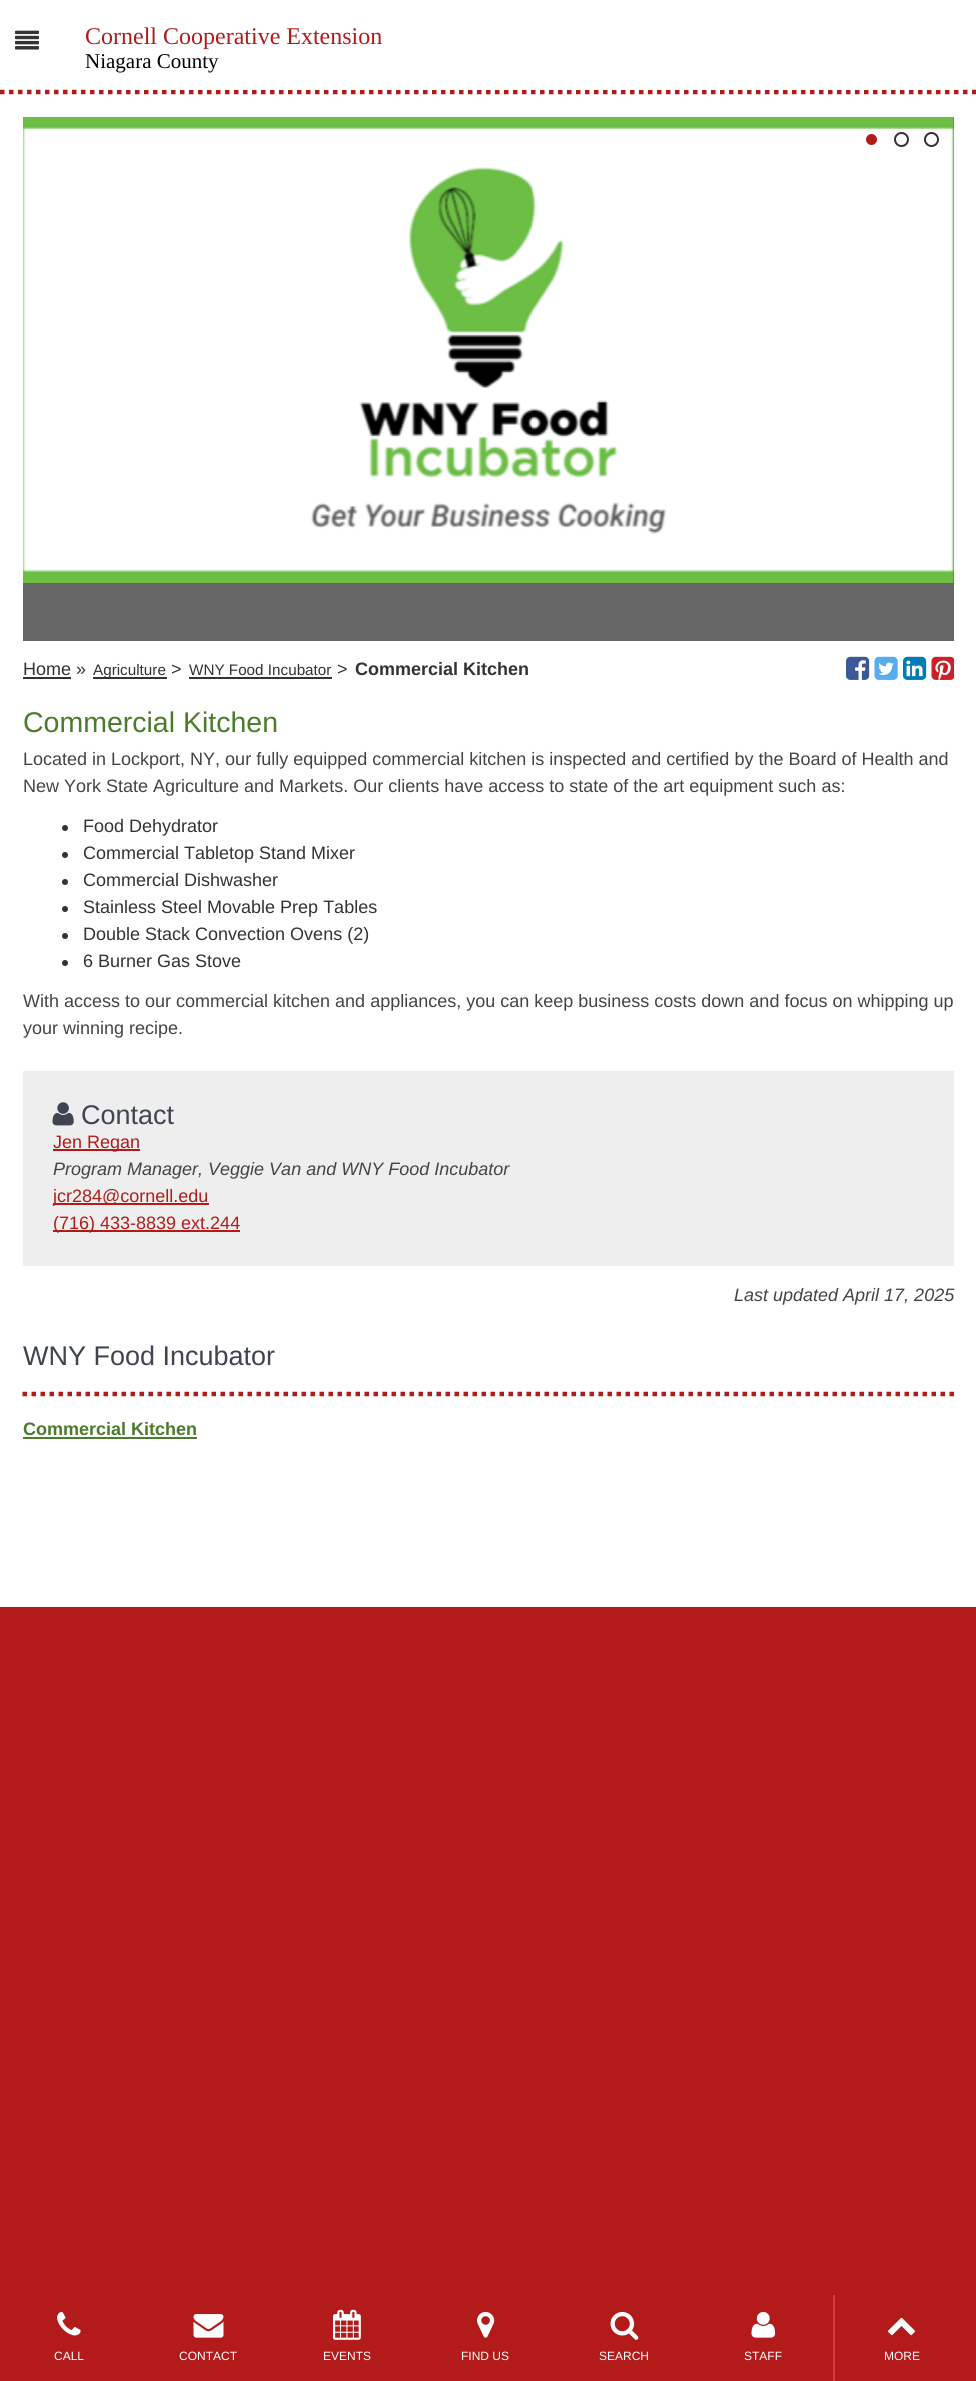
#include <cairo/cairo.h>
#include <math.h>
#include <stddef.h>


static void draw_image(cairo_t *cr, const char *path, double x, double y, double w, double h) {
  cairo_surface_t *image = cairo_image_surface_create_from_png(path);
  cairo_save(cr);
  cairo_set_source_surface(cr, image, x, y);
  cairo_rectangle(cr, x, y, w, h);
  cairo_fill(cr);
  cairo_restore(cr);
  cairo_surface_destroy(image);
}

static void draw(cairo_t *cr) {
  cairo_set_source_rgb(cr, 179 / 255.0, 27 / 255.0, 27 / 255.0);
  cairo_paint(cr);
  cairo_set_source_rgb(cr, 1, 1, 1);
  cairo_rectangle(cr, 0, 0, 976, 1607);
  cairo_fill(cr);
  cairo_new_path(cr);
  cairo_move_to(cr, 0, 92);
  cairo_line_to(cr, 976.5, 92);
  cairo_set_source_rgb(cr, 179 / 255.0, 27 / 255.0, 27 / 255.0);
  cairo_set_line_width(cr, 4.5);
  cairo_set_dash(cr, (double[]){4.5, 4.5}, 2, 0);
  cairo_stroke(cr);
  draw_image(cr, "images/1.png", 15, 30, 24, 20);
  cairo_set_source_rgb(cr, 1, 1, 1);
  cairo_rectangle(cr, 90, 89, 869, 1);
  cairo_fill(cr);
  cairo_set_source_rgb(cr, 51 / 255.0, 51 / 255.0, 51 / 255.0);
  cairo_rectangle(cr, 23, 117, 931, 467);
  cairo_fill(cr);
  draw_image(cr, "images/2.png", 23, 117, 931, 467);
  cairo_set_source_rgb(cr, 102 / 255.0, 102 / 255.0, 102 / 255.0);
  cairo_rectangle(cr, 23, 584, 931, 57);
  cairo_fill(cr);
  cairo_set_source_rgb(cr, 179 / 255.0, 27 / 255.0, 27 / 255.0);
  cairo_arc(cr, 871.5, 139.5, 6.5, 0, 2 * M_PI);
  cairo_fill_preserve(cr);
  cairo_set_source_rgb(cr, 1, 1, 1);
  cairo_set_line_width(cr, 2);
  cairo_set_dash(cr, NULL, 0, 0);
  cairo_stroke(cr);
  cairo_arc(cr, 901.5, 139.5, 6.5, 0, 2 * M_PI);
  cairo_set_source_rgb(cr, 51 / 255.0, 51 / 255.0, 51 / 255.0);
  cairo_stroke(cr);
  cairo_arc(cr, 931.5, 139.5, 6.5, 0, 2 * M_PI);
  cairo_stroke(cr);
  cairo_rectangle(cr, 23, 677, 48, 2);
  cairo_fill(cr);
  cairo_rectangle(cr, 93, 677, 74, 2);
  cairo_fill(cr);
  cairo_rectangle(cr, 189, 677, 143, 2);
  cairo_fill(cr);
  draw_image(cr, "images/3.png", 846, 656, 24, 24);
  draw_image(cr, "images/4.png", 874, 656, 24, 24);
  draw_image(cr, "images/5.png", 903, 656, 24, 24);
  draw_image(cr, "images/6.png", 931, 656, 23, 24);
  cairo_arc(cr, 65, 828, 3, 0, 2 * M_PI);
  cairo_fill(cr);
  cairo_arc(cr, 65, 855, 3, 0, 2 * M_PI);
  cairo_fill(cr);
  cairo_arc(cr, 65, 882, 3, 0, 2 * M_PI);
  cairo_fill(cr);
  cairo_arc(cr, 65, 909, 3, 0, 2 * M_PI);
  cairo_fill(cr);
  cairo_arc(cr, 65, 936, 3, 0, 2 * M_PI);
  cairo_fill(cr);
  cairo_arc(cr, 65, 963, 3, 0, 2 * M_PI);
  cairo_fill(cr);
  cairo_set_source_rgb(cr, 238 / 255.0, 238 / 255.0, 238 / 255.0);
  cairo_rectangle(cr, 23, 1071, 931, 195);
  cairo_fill(cr);
  draw_image(cr, "images/7.png", 52, 1102, 22, 24);
  cairo_set_source_rgb(cr, 179 / 255.0, 27 / 255.0, 27 / 255.0);
  cairo_rectangle(cr, 53, 1149, 87, 2);
  cairo_fill(cr);
  cairo_rectangle(cr, 53, 1203, 156, 2);
  cairo_fill(cr);
  cairo_rectangle(cr, 53, 1230, 187, 2);
  cairo_fill(cr);
  cairo_new_path(cr);
  cairo_move_to(cr, 22.5, 1394);
  cairo_line_to(cr, 954, 1394);
  cairo_set_line_width(cr, 4.5);
  cairo_set_dash(cr, (double[]){4.5, 4.5}, 2, 0);
  cairo_stroke(cr);
  cairo_set_source_rgb(cr, 75 / 255.0, 123 / 255.0, 43 / 255.0);
  cairo_rectangle(cr, 23, 1437, 174, 2);
  cairo_fill(cr);
  draw_image(cr, "images/8.png", 57, 2312, 24, 24);
  draw_image(cr, "images/9.png", 193, 2314, 31, 24);
  draw_image(cr, "images/10.png", 333, 2309, 28, 31);
  draw_image(cr, "images/11.png", 477, 2311, 18, 27);
  draw_image(cr, "images/12.png", 610, 2311, 29, 29);
  draw_image(cr, "images/13.png", 751, 2311, 25, 27);
  cairo_set_source_rgb(cr, 213 / 255.0, 61 / 255.0, 61 / 255.0);
  cairo_rectangle(cr, 833, 2295, 2, 86);
  cairo_fill(cr);
  draw_image(cr, "images/14.png", 888, 2317, 27, 19);
  cairo_select_font_face(cr, "Liberation Serif", CAIRO_FONT_SLANT_NORMAL, CAIRO_FONT_WEIGHT_NORMAL);
  cairo_set_font_size(cr, 24);
  cairo_set_source_rgb(cr, 179 / 255.0, 27 / 255.0, 27 / 255.0);
  cairo_move_to(cr, 85, 44);
  cairo_show_text(cr, "Cornell Cooperative Extension");
  cairo_set_font_size(cr, 21);
  cairo_set_source_rgb(cr, 0, 0, 0);
  cairo_move_to(cr, 85, 68);
  cairo_show_text(cr, "Niagara County");
  cairo_select_font_face(cr, "Liberation Sans", CAIRO_FONT_SLANT_NORMAL, CAIRO_FONT_WEIGHT_NORMAL);
  cairo_set_font_size(cr, 18);
  cairo_set_source_rgb(cr, 51 / 255.0, 51 / 255.0, 51 / 255.0);
  cairo_move_to(cr, 23, 675);
  cairo_show_text(cr, "Home »");
  cairo_set_font_size(cr, 15.25);
  cairo_move_to(cr, 93, 675);
  cairo_show_text(cr, "Agriculture");
  cairo_set_font_size(cr, 18);
  cairo_move_to(cr, 171, 675);
  cairo_show_text(cr, ">");
  cairo_set_font_size(cr, 15.25);
  cairo_move_to(cr, 189, 675);
  cairo_show_text(cr, "WNY Food Incubator");
  cairo_set_font_size(cr, 18);
  cairo_move_to(cr, 337, 675);
  cairo_show_text(cr, ">");
  cairo_select_font_face(cr, "Liberation Sans", CAIRO_FONT_SLANT_NORMAL, CAIRO_FONT_WEIGHT_BOLD);
  cairo_move_to(cr, 355, 675);
  cairo_show_text(cr, "Commercial Kitchen");
  cairo_select_font_face(cr, "Liberation Sans", CAIRO_FONT_SLANT_NORMAL, CAIRO_FONT_WEIGHT_NORMAL);
  cairo_set_font_size(cr, 28.5);
  cairo_set_source_rgb(cr, 75 / 255.0, 123 / 255.0, 43 / 255.0);
  cairo_move_to(cr, 23, 732);
  cairo_show_text(cr, "Commercial Kitchen");
  cairo_set_font_size(cr, 18);
  cairo_set_source_rgb(cr, 68 / 255.0, 68 / 255.0, 68 / 255.0);
  cairo_move_to(cr, 23, 765);
  cairo_show_text(cr, "Located in Lockport, NY, our fully equipped commercial kitchen is inspected and certified by the Board of Health and");
  cairo_move_to(cr, 23, 792);
  cairo_show_text(cr, "New York State Agriculture and Markets. Our clients have access to state of the art equipment such as:");
  cairo_set_source_rgb(cr, 51 / 255.0, 51 / 255.0, 51 / 255.0);
  cairo_move_to(cr, 83, 832);
  cairo_show_text(cr, "Food Dehydrator");
  cairo_move_to(cr, 83, 859);
  cairo_show_text(cr, "Commercial Tabletop Stand Mixer");
  cairo_move_to(cr, 83, 886);
  cairo_show_text(cr, "Commercial Dishwasher");
  cairo_move_to(cr, 83, 913);
  cairo_show_text(cr, "Stainless Steel Movable Prep Tables");
  cairo_move_to(cr, 83, 940);
  cairo_show_text(cr, "Double Stack Convection Ovens (2)");
  cairo_move_to(cr, 83, 967);
  cairo_show_text(cr, "6 Burner Gas Stove");
  cairo_set_source_rgb(cr, 68 / 255.0, 68 / 255.0, 68 / 255.0);
  cairo_move_to(cr, 23, 1007);
  cairo_show_text(cr, "With access to our commercial kitchen and appliances, you can keep business costs down and focus on whipping up");
  cairo_move_to(cr, 23, 1034);
  cairo_show_text(cr, "your winning recipe.");
  cairo_set_font_size(cr, 27);
  cairo_set_source_rgb(cr, 63 / 255.0, 68 / 255.0, 80 / 255.0);
  cairo_move_to(cr, 81, 1124);
  cairo_show_text(cr, "Contact");
  cairo_set_font_size(cr, 18);
  cairo_set_source_rgb(cr, 179 / 255.0, 27 / 255.0, 27 / 255.0);
  cairo_move_to(cr, 53, 1148);
  cairo_show_text(cr, "Jen Regan");
  cairo_select_font_face(cr, "Liberation Sans", CAIRO_FONT_SLANT_ITALIC, CAIRO_FONT_WEIGHT_NORMAL);
  cairo_set_source_rgb(cr, 68 / 255.0, 68 / 255.0, 68 / 255.0);
  cairo_move_to(cr, 53, 1175);
  cairo_show_text(cr, "Program Manager, Veggie Van and WNY Food Incubator");
  cairo_select_font_face(cr, "Liberation Sans", CAIRO_FONT_SLANT_NORMAL, CAIRO_FONT_WEIGHT_NORMAL);
  cairo_set_source_rgb(cr, 179 / 255.0, 27 / 255.0, 27 / 255.0);
  cairo_move_to(cr, 53, 1202);
  cairo_show_text(cr, "jcr284@cornell.edu");
  cairo_move_to(cr, 53, 1229);
  cairo_show_text(cr, "(716) 433-8839 ext.244");
  cairo_select_font_face(cr, "Liberation Sans", CAIRO_FONT_SLANT_ITALIC, CAIRO_FONT_WEIGHT_NORMAL);
  cairo_set_source_rgb(cr, 68 / 255.0, 68 / 255.0, 68 / 255.0);
  cairo_move_to(cr, 734, 1301);
  cairo_show_text(cr, "Last updated April 17, 2025");
  cairo_select_font_face(cr, "Liberation Sans", CAIRO_FONT_SLANT_NORMAL, CAIRO_FONT_WEIGHT_NORMAL);
  cairo_set_font_size(cr, 27);
  cairo_set_source_rgb(cr, 63 / 255.0, 68 / 255.0, 80 / 255.0);
  cairo_move_to(cr, 23, 1365);
  cairo_show_text(cr, "WNY Food Incubator");
  cairo_select_font_face(cr, "Liberation Sans", CAIRO_FONT_SLANT_NORMAL, CAIRO_FONT_WEIGHT_BOLD);
  cairo_set_font_size(cr, 18);
  cairo_set_source_rgb(cr, 75 / 255.0, 123 / 255.0, 43 / 255.0);
  cairo_move_to(cr, 23, 1435);
  cairo_show_text(cr, "Commercial Kitchen");
  cairo_select_font_face(cr, "Liberation Sans", CAIRO_FONT_SLANT_NORMAL, CAIRO_FONT_WEIGHT_NORMAL);
  cairo_set_font_size(cr, 12);
  cairo_set_source_rgb(cr, 1, 1, 1);
  cairo_move_to(cr, 54, 2360);
  cairo_show_text(cr, "CALL");
  cairo_move_to(cr, 179, 2360);
  cairo_show_text(cr, "CONTACT");
  cairo_move_to(cr, 323, 2360);
  cairo_show_text(cr, "EVENTS");
  cairo_move_to(cr, 461, 2360);
  cairo_show_text(cr, "FIND US");
  cairo_move_to(cr, 599, 2360);
  cairo_show_text(cr, "SEARCH");
  cairo_move_to(cr, 744, 2360);
  cairo_show_text(cr, "STAFF");
  cairo_move_to(cr, 884, 2360);
  cairo_show_text(cr, "MORE");
}

int main(void) {
  cairo_surface_t *surface = cairo_image_surface_create(CAIRO_FORMAT_RGB24, 976, 2381);
  cairo_t *cr = cairo_create(surface);
  cairo_font_options_t *options = cairo_font_options_create();
  cairo_font_options_set_hint_metrics(options, CAIRO_HINT_METRICS_OFF);
  cairo_font_options_set_hint_style(options, CAIRO_HINT_STYLE_NONE);
  cairo_set_font_options(cr, options);
  cairo_set_miter_limit(cr, 4);
  draw(cr);
  cairo_surface_write_to_png(surface, "out.png");
  cairo_font_options_destroy(options);
  cairo_destroy(cr);
  cairo_surface_destroy(surface);
  return 0;
}
